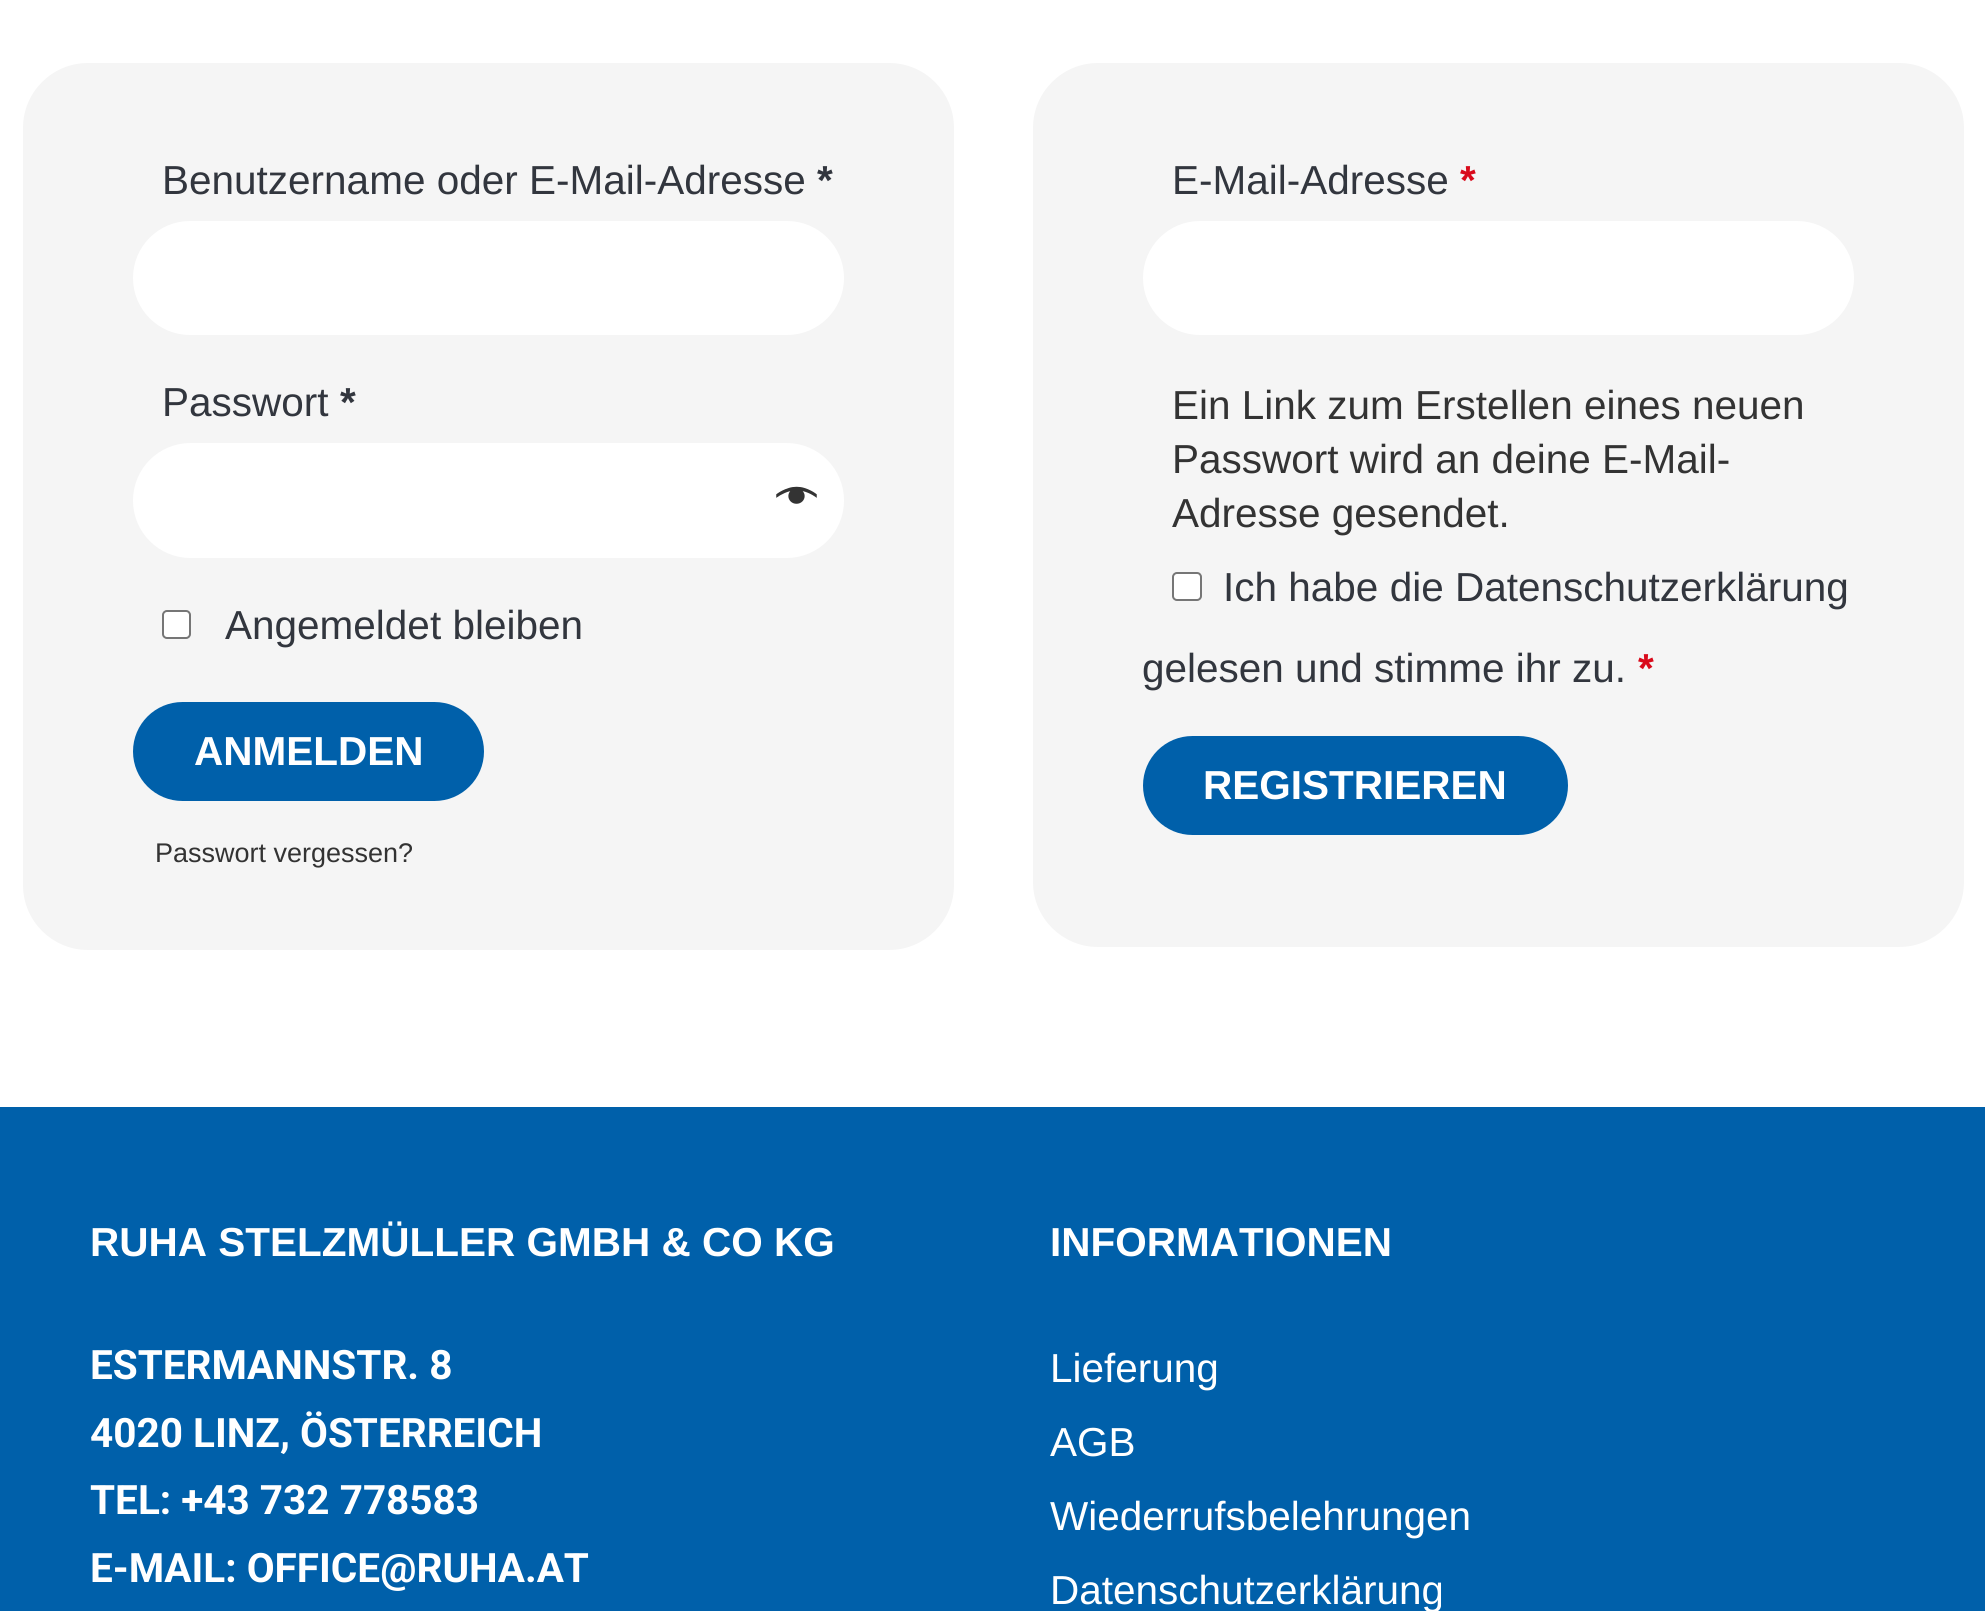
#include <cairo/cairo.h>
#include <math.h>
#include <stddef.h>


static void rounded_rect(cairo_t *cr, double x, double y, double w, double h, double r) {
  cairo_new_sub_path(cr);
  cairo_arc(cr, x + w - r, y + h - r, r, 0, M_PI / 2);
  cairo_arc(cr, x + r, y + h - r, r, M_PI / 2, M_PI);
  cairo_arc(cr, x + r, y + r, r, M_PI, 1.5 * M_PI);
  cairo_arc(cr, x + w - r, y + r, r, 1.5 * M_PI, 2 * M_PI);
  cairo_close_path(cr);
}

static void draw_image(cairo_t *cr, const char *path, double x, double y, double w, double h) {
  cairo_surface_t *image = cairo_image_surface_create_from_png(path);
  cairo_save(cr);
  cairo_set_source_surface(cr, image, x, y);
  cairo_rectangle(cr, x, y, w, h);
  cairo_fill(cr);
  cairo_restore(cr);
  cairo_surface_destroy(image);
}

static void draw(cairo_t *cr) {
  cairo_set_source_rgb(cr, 1, 1, 1);
  cairo_paint(cr);
  cairo_set_source_rgb(cr, 245 / 255.0, 245 / 255.0, 245 / 255.0);
  rounded_rect(cr, 24, 64, 929, 885, 64);
  cairo_fill_preserve(cr);
  cairo_stroke(cr);
  cairo_set_source_rgb(cr, 1, 1, 1);
  rounded_rect(cr, 133, 221, 711, 114, 57);
  cairo_fill(cr);
  rounded_rect(cr, 133, 443, 711, 115, 57.5);
  cairo_fill(cr);
  draw_image(cr, "images/1.png", 776, 486, 41, 18);
  rounded_rect(cr, 163, 611, 27, 27, 4);
  cairo_fill_preserve(cr);
  cairo_set_source_rgb(cr, 118 / 255.0, 118 / 255.0, 118 / 255.0);
  cairo_stroke(cr);
  cairo_set_source_rgb(cr, 0, 96 / 255.0, 170 / 255.0);
  rounded_rect(cr, 135.5, 704.5, 346, 94, 47);
  cairo_fill_preserve(cr);
  cairo_set_line_width(cr, 5);
  cairo_stroke(cr);
  cairo_set_source_rgb(cr, 245 / 255.0, 245 / 255.0, 245 / 255.0);
  rounded_rect(cr, 1034, 64, 929, 882, 64);
  cairo_fill_preserve(cr);
  cairo_set_line_width(cr, 2);
  cairo_stroke(cr);
  cairo_set_source_rgb(cr, 1, 1, 1);
  rounded_rect(cr, 1143, 221, 711, 114, 57);
  cairo_fill(cr);
  rounded_rect(cr, 1173, 573, 28, 27, 4);
  cairo_fill_preserve(cr);
  cairo_set_source_rgb(cr, 118 / 255.0, 118 / 255.0, 118 / 255.0);
  cairo_stroke(cr);
  cairo_set_source_rgb(cr, 0, 96 / 255.0, 170 / 255.0);
  rounded_rect(cr, 1145.5, 738.5, 420, 94, 47);
  cairo_fill_preserve(cr);
  cairo_set_line_width(cr, 5);
  cairo_stroke(cr);
  cairo_rectangle(cr, 0, 1107, 1985, 504);
  cairo_fill(cr);
  cairo_select_font_face(cr, "Liberation Sans", CAIRO_FONT_SLANT_NORMAL, CAIRO_FONT_WEIGHT_NORMAL);
  cairo_set_font_size(cr, 40.5);
  cairo_set_source_rgb(cr, 50 / 255.0, 54 / 255.0, 62 / 255.0);
  cairo_move_to(cr, 162, 194);
  cairo_show_text(cr, "Benutzername oder E-Mail-Adresse");
  cairo_select_font_face(cr, "Liberation Sans", CAIRO_FONT_SLANT_NORMAL, CAIRO_FONT_WEIGHT_BOLD);
  cairo_move_to(cr, 817, 194);
  cairo_show_text(cr, "*");
  cairo_select_font_face(cr, "Liberation Sans", CAIRO_FONT_SLANT_NORMAL, CAIRO_FONT_WEIGHT_NORMAL);
  cairo_move_to(cr, 162, 416);
  cairo_show_text(cr, "Passwort");
  cairo_select_font_face(cr, "Liberation Sans", CAIRO_FONT_SLANT_NORMAL, CAIRO_FONT_WEIGHT_BOLD);
  cairo_move_to(cr, 340, 416);
  cairo_show_text(cr, "*");
  cairo_select_font_face(cr, "Liberation Sans", CAIRO_FONT_SLANT_NORMAL, CAIRO_FONT_WEIGHT_NORMAL);
  cairo_move_to(cr, 225, 639);
  cairo_show_text(cr, "Angemeldet bleiben");
  cairo_select_font_face(cr, "Liberation Sans", CAIRO_FONT_SLANT_NORMAL, CAIRO_FONT_WEIGHT_BOLD);
  cairo_set_source_rgb(cr, 1, 1, 1);
  cairo_move_to(cr, 194, 765);
  cairo_show_text(cr, "ANMELDEN");
  cairo_select_font_face(cr, "Liberation Sans", CAIRO_FONT_SLANT_NORMAL, CAIRO_FONT_WEIGHT_NORMAL);
  cairo_set_font_size(cr, 27);
  cairo_set_source_rgb(cr, 51 / 255.0, 51 / 255.0, 51 / 255.0);
  cairo_move_to(cr, 155, 862);
  cairo_show_text(cr, "Passwort vergessen?");
  cairo_set_font_size(cr, 40.5);
  cairo_set_source_rgb(cr, 50 / 255.0, 54 / 255.0, 62 / 255.0);
  cairo_move_to(cr, 1172, 194);
  cairo_show_text(cr, "E-Mail-Adresse");
  cairo_select_font_face(cr, "Liberation Sans", CAIRO_FONT_SLANT_NORMAL, CAIRO_FONT_WEIGHT_BOLD);
  cairo_set_source_rgb(cr, 217 / 255.0, 10 / 255.0, 27 / 255.0);
  cairo_move_to(cr, 1460, 194);
  cairo_show_text(cr, "*");
  cairo_select_font_face(cr, "Liberation Sans", CAIRO_FONT_SLANT_NORMAL, CAIRO_FONT_WEIGHT_NORMAL);
  cairo_set_source_rgb(cr, 51 / 255.0, 51 / 255.0, 51 / 255.0);
  cairo_move_to(cr, 1172, 419);
  cairo_show_text(cr, "Ein Link zum Erstellen eines neuen");
  cairo_move_to(cr, 1172, 473);
  cairo_show_text(cr, "Passwort wird an deine E-Mail-");
  cairo_move_to(cr, 1172, 527);
  cairo_show_text(cr, "Adresse gesendet.");
  cairo_set_source_rgb(cr, 50 / 255.0, 54 / 255.0, 62 / 255.0);
  cairo_move_to(cr, 1223, 601);
  cairo_show_text(cr, "Ich habe die Datenschutzerklärung");
  cairo_move_to(cr, 1142, 682);
  cairo_show_text(cr, "gelesen und stimme ihr zu.");
  cairo_select_font_face(cr, "Liberation Sans", CAIRO_FONT_SLANT_NORMAL, CAIRO_FONT_WEIGHT_BOLD);
  cairo_set_source_rgb(cr, 217 / 255.0, 10 / 255.0, 27 / 255.0);
  cairo_move_to(cr, 1638, 682);
  cairo_show_text(cr, "*");
  cairo_set_source_rgb(cr, 1, 1, 1);
  cairo_move_to(cr, 1203, 799);
  cairo_show_text(cr, "REGISTRIEREN");
  cairo_move_to(cr, 90, 1256);
  cairo_show_text(cr, "RUHA STELZMÜLLER GMBH & CO KG");
  cairo_select_font_face(cr, "Roboto", CAIRO_FONT_SLANT_NORMAL, CAIRO_FONT_WEIGHT_BOLD);
  cairo_move_to(cr, 90, 1379);
  cairo_show_text(cr, "ESTERMANNSTR. 8");
  cairo_move_to(cr, 90, 1447);
  cairo_show_text(cr, "4020 LINZ, ÖSTERREICH");
  cairo_move_to(cr, 90, 1514);
  cairo_show_text(cr, "TEL: +43 732 778583");
  cairo_move_to(cr, 90, 1582);
  cairo_show_text(cr, "E-MAIL: OFFICE@RUHA.AT");
  cairo_select_font_face(cr, "Liberation Sans", CAIRO_FONT_SLANT_NORMAL, CAIRO_FONT_WEIGHT_BOLD);
  cairo_move_to(cr, 1050, 1256);
  cairo_show_text(cr, "INFORMATIONEN");
  cairo_select_font_face(cr, "Liberation Sans", CAIRO_FONT_SLANT_NORMAL, CAIRO_FONT_WEIGHT_NORMAL);
  cairo_move_to(cr, 1050, 1382);
  cairo_show_text(cr, "Lieferung");
  cairo_move_to(cr, 1050, 1456);
  cairo_show_text(cr, "AGB");
  cairo_move_to(cr, 1050, 1530);
  cairo_show_text(cr, "Wiederrufsbelehrungen");
  cairo_move_to(cr, 1050, 1604);
  cairo_show_text(cr, "Datenschutzerklärung");
}

int main(void) {
  cairo_surface_t *surface = cairo_image_surface_create(CAIRO_FORMAT_RGB24, 1985, 1611);
  cairo_t *cr = cairo_create(surface);
  cairo_font_options_t *options = cairo_font_options_create();
  cairo_font_options_set_hint_metrics(options, CAIRO_HINT_METRICS_OFF);
  cairo_font_options_set_hint_style(options, CAIRO_HINT_STYLE_NONE);
  cairo_set_font_options(cr, options);
  cairo_set_miter_limit(cr, 4);
  draw(cr);
  cairo_surface_write_to_png(surface, "out.png");
  cairo_font_options_destroy(options);
  cairo_destroy(cr);
  cairo_surface_destroy(surface);
  return 0;
}
